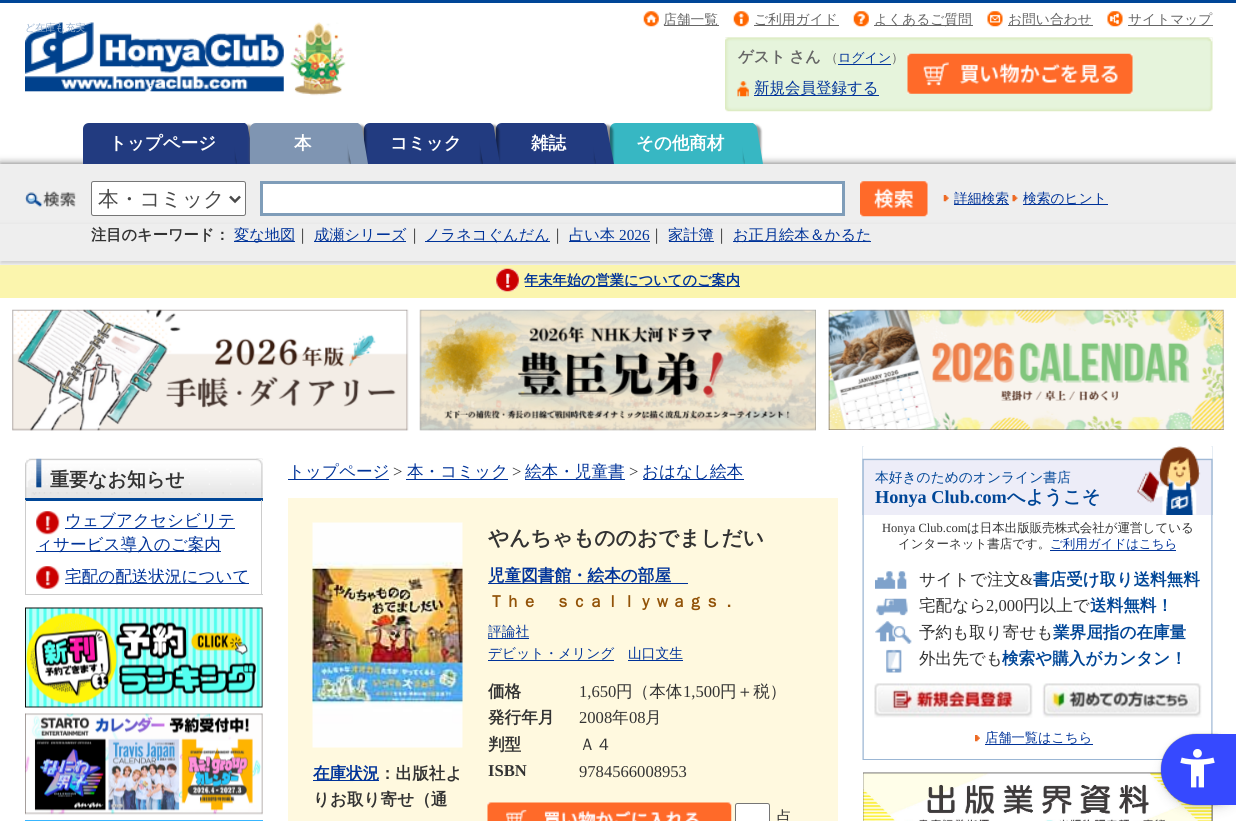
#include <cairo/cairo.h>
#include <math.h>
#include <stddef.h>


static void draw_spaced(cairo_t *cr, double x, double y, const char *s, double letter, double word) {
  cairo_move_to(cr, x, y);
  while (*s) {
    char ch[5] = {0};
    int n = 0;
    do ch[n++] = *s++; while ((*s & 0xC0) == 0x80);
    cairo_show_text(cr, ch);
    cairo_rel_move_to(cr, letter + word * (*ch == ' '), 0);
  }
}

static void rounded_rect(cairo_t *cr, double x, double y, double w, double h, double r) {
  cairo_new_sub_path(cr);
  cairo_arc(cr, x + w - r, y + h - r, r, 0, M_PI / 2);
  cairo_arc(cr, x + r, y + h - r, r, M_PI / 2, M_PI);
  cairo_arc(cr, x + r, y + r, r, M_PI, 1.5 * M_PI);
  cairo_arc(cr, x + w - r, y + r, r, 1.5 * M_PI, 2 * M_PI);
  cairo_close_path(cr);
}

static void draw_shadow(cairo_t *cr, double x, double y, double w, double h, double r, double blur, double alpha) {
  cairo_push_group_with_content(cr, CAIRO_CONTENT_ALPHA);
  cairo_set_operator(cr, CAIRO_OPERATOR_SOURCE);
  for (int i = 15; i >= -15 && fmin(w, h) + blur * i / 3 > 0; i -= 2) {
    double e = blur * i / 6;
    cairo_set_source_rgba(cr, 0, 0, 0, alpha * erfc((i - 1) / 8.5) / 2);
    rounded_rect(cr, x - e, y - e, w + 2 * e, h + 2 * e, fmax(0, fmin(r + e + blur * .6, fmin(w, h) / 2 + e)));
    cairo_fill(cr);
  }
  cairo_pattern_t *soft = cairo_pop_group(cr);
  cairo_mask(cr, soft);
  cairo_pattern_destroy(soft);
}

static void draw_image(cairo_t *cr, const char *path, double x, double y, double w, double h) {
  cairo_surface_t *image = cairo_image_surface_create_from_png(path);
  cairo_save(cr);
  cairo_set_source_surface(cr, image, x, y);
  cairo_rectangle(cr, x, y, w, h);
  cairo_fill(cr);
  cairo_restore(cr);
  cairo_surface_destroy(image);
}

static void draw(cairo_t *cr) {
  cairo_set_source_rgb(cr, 1, 1, 1);
  cairo_paint(cr);
  cairo_set_source_rgb(cr, 0, 70 / 255.0, 151 / 255.0);
  cairo_rectangle(cr, 0, 0, 1236, 3);
  cairo_fill(cr);
  draw_image(cr, "images/1.png", 25, 22, 321, 74);
  draw_image(cr, "images/2.png", 643, 11, 16, 16);
  cairo_set_source_rgb(cr, 102 / 255.0, 102 / 255.0, 102 / 255.0);
  cairo_rectangle(cr, 664, 25, 55, 1);
  cairo_fill(cr);
  draw_image(cr, "images/3.png", 733, 11, 16, 16);
  cairo_rectangle(cr, 754, 25, 85, 1);
  cairo_fill(cr);
  draw_image(cr, "images/4.png", 853, 11, 16, 16);
  cairo_rectangle(cr, 874, 25, 99, 1);
  cairo_fill(cr);
  draw_image(cr, "images/5.png", 987, 11, 16, 16);
  cairo_rectangle(cr, 1008, 25, 85, 1);
  cairo_fill(cr);
  draw_image(cr, "images/6.png", 1107, 11, 16, 16);
  cairo_rectangle(cr, 1128, 25, 85, 1);
  cairo_fill(cr);
  draw_image(cr, "images/7.png", 725, 37, 488, 75);
  draw_image(cr, "images/8.png", 725, 37, 488, 5);
  cairo_set_source_rgb(cr, 0, 51 / 255.0, 153 / 255.0);
  cairo_rectangle(cr, 838, 64, 53, 1);
  cairo_fill(cr);
  draw_image(cr, "images/9.png", 737, 81, 12, 16);
  cairo_rectangle(cr, 754, 95, 125, 1);
  cairo_fill(cr);
  draw_image(cr, "images/10.png", 907, 53, 226, 41);
  draw_image(cr, "images/11.png", 25, 458, 238, 40);
  cairo_set_source_rgb(cr, 0, 70 / 255.0, 151 / 255.0);
  cairo_rectangle(cr, 25, 498, 238, 3);
  cairo_fill(cr);
  draw_image(cr, "images/12.png", 256, 458, 7, 40);
  cairo_set_source_rgb(cr, 204 / 255.0, 204 / 255.0, 204 / 255.0);
  cairo_rectangle(cr, 261, 500, 1, 95);
  cairo_fill(cr);
  cairo_rectangle(cr, 25, 594, 238, 1);
  cairo_fill(cr);
  cairo_rectangle(cr, 25, 500, 1, 95);
  cairo_fill(cr);
  draw_image(cr, "images/13.png", 36, 511, 24, 24);
  cairo_set_source_rgb(cr, 0, 51 / 255.0, 153 / 255.0);
  cairo_rectangle(cr, 65, 528, 170, 1);
  cairo_fill(cr);
  cairo_rectangle(cr, 36, 551, 185, 1);
  cairo_fill(cr);
  draw_image(cr, "images/14.png", 36, 566, 24, 23);
  cairo_rectangle(cr, 65, 583, 184, 1);
  cairo_fill(cr);
  draw_image(cr, "images/15.png", 25, 607, 238, 101);
  draw_image(cr, "images/16.png", 25, 713, 238, 102);
  cairo_set_source_rgb(cr, 56 / 255.0, 182 / 255.0, 1);
  cairo_rectangle(cr, 25, 820, 238, 1);
  cairo_fill(cr);
  cairo_set_source_rgb(cr, 0, 51 / 255.0, 153 / 255.0);
  cairo_rectangle(cr, 288, 479, 101, 1);
  cairo_fill(cr);
  cairo_rectangle(cr, 406, 479, 102, 1);
  cairo_fill(cr);
  cairo_rectangle(cr, 525, 479, 100, 1);
  cairo_fill(cr);
  cairo_rectangle(cr, 643, 479, 101, 1);
  cairo_fill(cr);
  cairo_set_source_rgb(cr, 1, 249 / 255.0, 223 / 255.0);
  cairo_rectangle(cr, 288, 498, 550, 323);
  cairo_fill(cr);
  draw_image(cr, "images/17.png", 312, 522, 151, 226);
  cairo_set_source_rgb(cr, 0, 51 / 255.0, 153 / 255.0);
  cairo_rectangle(cr, 313, 780, 66, 1);
  cairo_fill(cr);
  cairo_rectangle(cr, 488, 583, 200, 1);
  cairo_fill(cr);
  cairo_rectangle(cr, 488, 638, 41, 1);
  cairo_fill(cr);
  cairo_rectangle(cr, 488, 660, 126, 1);
  cairo_fill(cr);
  cairo_rectangle(cr, 628, 660, 55, 1);
  cairo_fill(cr);
  draw_image(cr, "images/18.png", 487, 802, 245, 19);
  cairo_set_source_rgb(cr, 1, 1, 1);
  rounded_rect(cr, 735.5, 803.5, 34, 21, 2);
  cairo_fill_preserve(cr);
  cairo_set_source_rgb(cr, 118 / 255.0, 118 / 255.0, 118 / 255.0);
  cairo_set_line_width(cr, 1);
  cairo_stroke(cr);
  draw_image(cr, "images/19.png", 862, 446, 351, 314);
  cairo_set_source_rgb(cr, 155 / 255.0, 182 / 255.0, 212 / 255.0);
  cairo_rectangle(cr, 863, 759, 300, 1);
  cairo_fill(cr);
  draw_image(cr, "images/20.png", 862, 446, 351, 69);
  cairo_set_source_rgb(cr, 0, 51 / 255.0, 153 / 255.0);
  cairo_rectangle(cr, 1050, 550, 126, 1);
  cairo_fill(cr);
  draw_image(cr, "images/21.png", 875, 571, 32, 18);
  draw_image(cr, "images/22.png", 876, 598, 32, 18);
  draw_image(cr, "images/23.png", 875, 621, 37, 23);
  draw_image(cr, "images/24.png", 886, 649, 16, 24);
  draw_image(cr, "images/25.png", 874, 683, 159, 35);
  draw_image(cr, "images/26.png", 1042, 683, 160, 35);
  draw_image(cr, "images/27.png", 975, 735, 5, 7);
  cairo_rectangle(cr, 985, 744, 108, 1);
  cairo_fill(cr);
  draw_image(cr, "images/28.png", 863, 772, 350, 49);
  cairo_set_source_rgb(cr, 0, 0, 0);
  draw_shadow(cr, 0, 164, 1236, 60, 0, 4, 0.6);
  cairo_set_source_rgb(cr, 34 / 255.0, 59 / 255.0, 128 / 255.0);
  cairo_new_path(cr);
  cairo_move_to(cr, 89, 123);
  cairo_line_to(cr, 243, 123);
  cairo_line_to(cr, 243, 164);
  cairo_line_to(cr, 83, 164);
  cairo_line_to(cr, 83, 129);
  cairo_curve_to(cr, 83, 125.5, 85.5, 123, 89, 123);
  cairo_close_path(cr);
  cairo_fill(cr);
  cairo_set_source_rgb(cr, 238 / 255.0, 238 / 255.0, 238 / 255.0);
  cairo_rectangle(cr, 0, 164, 1236, 60);
  cairo_fill(cr);
  cairo_save(cr);
  cairo_rectangle(cr, 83, 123, 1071, 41);
  cairo_clip(cr);
  cairo_set_source_rgb(cr, 0, 0, 0);
  draw_shadow(cr, 236, 125, 18, 41, 6, 1, 0.4);
  cairo_restore(cr);
  cairo_save(cr);
  cairo_rectangle(cr, 83, 123, 1071, 41);
  cairo_clip(cr);
  cairo_set_source_rgb(cr, 34 / 255.0, 59 / 255.0, 128 / 255.0);
  cairo_new_path(cr);
  cairo_move_to(cr, 230, 122);
  cairo_line_to(cr, 241, 122);
  cairo_curve_to(cr, 245, 122, 248, 125, 248, 128);
  cairo_line_to(cr, 255, 164);
  cairo_line_to(cr, 237, 164);
  cairo_close_path(cr);
  cairo_fill(cr);
  cairo_restore(cr);
  cairo_save(cr);
  cairo_rectangle(cr, 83, 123, 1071, 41);
  cairo_clip(cr);
  cairo_set_source_rgb(cr, 102 / 255.0, 102 / 255.0, 102 / 255.0);
  draw_shadow(cr, 250, 125, 105, 41, 6, 1, 1);
  cairo_restore(cr);
  cairo_set_source_rgb(cr, 127 / 255.0, 149 / 255.0, 178 / 255.0);
  cairo_new_path(cr);
  cairo_move_to(cr, 256, 123);
  cairo_line_to(cr, 355, 123);
  cairo_line_to(cr, 355, 164);
  cairo_line_to(cr, 250, 164);
  cairo_line_to(cr, 250, 129);
  cairo_curve_to(cr, 250, 125.5, 252.5, 123, 256, 123);
  cairo_close_path(cr);
  cairo_fill(cr);
  cairo_save(cr);
  cairo_rectangle(cr, 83, 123, 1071, 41);
  cairo_clip(cr);
  cairo_set_source_rgb(cr, 102 / 255.0, 102 / 255.0, 102 / 255.0);
  draw_shadow(cr, 364, 125, 124, 41, 6, 1, 1);
  cairo_restore(cr);
  cairo_set_source_rgb(cr, 34 / 255.0, 59 / 255.0, 128 / 255.0);
  cairo_new_path(cr);
  cairo_move_to(cr, 370, 123);
  cairo_line_to(cr, 488, 123);
  cairo_line_to(cr, 488, 164);
  cairo_line_to(cr, 364, 164);
  cairo_line_to(cr, 364, 129);
  cairo_curve_to(cr, 364, 125.5, 366.5, 123, 370, 123);
  cairo_close_path(cr);
  cairo_fill(cr);
  cairo_save(cr);
  cairo_rectangle(cr, 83, 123, 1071, 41);
  cairo_clip(cr);
  cairo_set_source_rgb(cr, 0, 0, 0);
  draw_shadow(cr, 349, 125, 17, 41, 6, 1, 0.4);
  cairo_restore(cr);
  cairo_save(cr);
  cairo_rectangle(cr, 83, 123, 1071, 41);
  cairo_clip(cr);
  cairo_set_source_rgb(cr, 127 / 255.0, 149 / 255.0, 178 / 255.0);
  cairo_new_path(cr);
  cairo_move_to(cr, 343, 122);
  cairo_line_to(cr, 354, 122);
  cairo_curve_to(cr, 358, 122, 361, 125, 362, 128);
  cairo_line_to(cr, 368, 164);
  cairo_line_to(cr, 351, 164);
  cairo_close_path(cr);
  cairo_fill(cr);
  cairo_restore(cr);
  cairo_save(cr);
  cairo_rectangle(cr, 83, 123, 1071, 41);
  cairo_clip(cr);
  cairo_set_source_rgb(cr, 102 / 255.0, 102 / 255.0, 102 / 255.0);
  draw_shadow(cr, 496, 125, 105, 41, 6, 1, 1);
  cairo_restore(cr);
  cairo_new_path(cr);
  cairo_move_to(cr, 502, 123);
  cairo_line_to(cr, 601, 123);
  cairo_line_to(cr, 601, 164);
  cairo_line_to(cr, 496, 164);
  cairo_line_to(cr, 496, 129);
  cairo_curve_to(cr, 496, 125.5, 498.5, 123, 502, 123);
  cairo_close_path(cr);
  cairo_fill(cr);
  cairo_save(cr);
  cairo_rectangle(cr, 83, 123, 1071, 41);
  cairo_clip(cr);
  cairo_set_source_rgb(cr, 0, 0, 0);
  draw_shadow(cr, 481, 125, 18, 41, 6, 1, 0.4);
  cairo_restore(cr);
  cairo_save(cr);
  cairo_rectangle(cr, 83, 123, 1071, 41);
  cairo_clip(cr);
  cairo_new_path(cr);
  cairo_move_to(cr, 476, 122);
  cairo_line_to(cr, 487, 122);
  cairo_curve_to(cr, 490, 122, 494, 125, 494, 128);
  cairo_line_to(cr, 500, 164);
  cairo_line_to(cr, 483, 164);
  cairo_close_path(cr);
  cairo_fill(cr);
  cairo_restore(cr);
  cairo_save(cr);
  cairo_rectangle(cr, 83, 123, 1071, 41);
  cairo_clip(cr);
  cairo_set_source_rgb(cr, 102 / 255.0, 102 / 255.0, 102 / 255.0);
  draw_shadow(cr, 610, 125, 140, 41, 6, 1, 1);
  cairo_restore(cr);
  cairo_set_source_rgb(cr, 55 / 255.0, 183 / 255.0, 195 / 255.0);
  cairo_new_path(cr);
  cairo_move_to(cr, 616, 123);
  cairo_line_to(cr, 750, 123);
  cairo_line_to(cr, 750, 164);
  cairo_line_to(cr, 610, 164);
  cairo_line_to(cr, 610, 129);
  cairo_curve_to(cr, 610, 125.5, 612.5, 123, 616, 123);
  cairo_close_path(cr);
  cairo_fill(cr);
  cairo_save(cr);
  cairo_rectangle(cr, 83, 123, 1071, 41);
  cairo_clip(cr);
  cairo_set_source_rgb(cr, 0, 0, 0);
  draw_shadow(cr, 595, 125, 18, 41, 6, 1, 0.4);
  cairo_restore(cr);
  cairo_save(cr);
  cairo_rectangle(cr, 83, 123, 1071, 41);
  cairo_clip(cr);
  cairo_set_source_rgb(cr, 34 / 255.0, 59 / 255.0, 128 / 255.0);
  cairo_new_path(cr);
  cairo_move_to(cr, 589, 122);
  cairo_line_to(cr, 600, 122);
  cairo_curve_to(cr, 604, 122, 607, 125, 607, 128);
  cairo_line_to(cr, 614, 164);
  cairo_line_to(cr, 596, 164);
  cairo_close_path(cr);
  cairo_fill(cr);
  cairo_restore(cr);
  cairo_save(cr);
  cairo_rectangle(cr, 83, 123, 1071, 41);
  cairo_clip(cr);
  cairo_set_source_rgb(cr, 0, 0, 0);
  draw_shadow(cr, 744, 125, 17, 41, 6, 1, 0.4);
  cairo_restore(cr);
  cairo_save(cr);
  cairo_rectangle(cr, 83, 123, 1071, 41);
  cairo_clip(cr);
  cairo_new_path(cr);
  cairo_move_to(cr, 738, 122);
  cairo_line_to(cr, 749, 122);
  cairo_curve_to(cr, 753, 122, 756, 125, 757, 128);
  cairo_line_to(cr, 763, 164);
  cairo_line_to(cr, 745, 164);
  cairo_close_path(cr);
  cairo_fill(cr);
  cairo_restore(cr);
  draw_image(cr, "images/29.png", 25, 191, 51, 16);
  cairo_set_source_rgb(cr, 1, 1, 1);
  rounded_rect(cr, 91.5, 181.5, 154, 34, 2);
  cairo_fill_preserve(cr);
  cairo_set_source_rgb(cr, 118 / 255.0, 118 / 255.0, 118 / 255.0);
  cairo_stroke(cr);
  cairo_new_path(cr);
  cairo_move_to(cr, 230, 196.5);
  cairo_line_to(cr, 235, 201.5);
  cairo_line_to(cr, 240, 196.5);
  cairo_set_source_rgb(cr, 73 / 255.0, 73 / 255.0, 73 / 255.0);
  cairo_set_line_width(cr, 2.5);
  cairo_stroke(cr);
  cairo_set_source_rgb(cr, 1, 1, 1);
  cairo_rectangle(cr, 261.5, 182.5, 582, 32);
  cairo_fill_preserve(cr);
  cairo_set_source_rgb(cr, 127 / 255.0, 157 / 255.0, 185 / 255.0);
  cairo_set_line_width(cr, 3);
  cairo_stroke(cr);
  draw_image(cr, "images/30.png", 860, 181, 68, 36);
  draw_image(cr, "images/31.png", 943, 195, 6, 7);
  cairo_set_source_rgb(cr, 0, 51 / 255.0, 153 / 255.0);
  cairo_rectangle(cr, 954, 204, 55, 1);
  cairo_fill(cr);
  draw_image(cr, "images/32.png", 1012, 195, 6, 7);
  cairo_rectangle(cr, 1023, 204, 85, 1);
  cairo_fill(cr);
  cairo_set_source_rgb(cr, 204 / 255.0, 204 / 255.0, 204 / 255.0);
  draw_shadow(cr, 0, 226, 1236, 38, 0, 2.5, 1);
  cairo_set_source_rgb(cr, 238 / 255.0, 238 / 255.0, 238 / 255.0);
  cairo_rectangle(cr, 0, 224, 1236, 37);
  cairo_fill(cr);
  cairo_set_source_rgb(cr, 0, 51 / 255.0, 153 / 255.0);
  cairo_rectangle(cr, 234, 241, 61, 1);
  cairo_fill(cr);
  cairo_rectangle(cr, 314, 241, 92, 1);
  cairo_fill(cr);
  cairo_rectangle(cr, 425, 241, 125, 1);
  cairo_fill(cr);
  cairo_rectangle(cr, 569, 241, 81, 1);
  cairo_fill(cr);
  cairo_rectangle(cr, 669, 241, 45, 1);
  cairo_fill(cr);
  cairo_rectangle(cr, 733, 241, 138, 1);
  cairo_fill(cr);
  cairo_set_source_rgb(cr, 251 / 255.0, 245 / 255.0, 173 / 255.0);
  cairo_rectangle(cr, 0, 265, 1236, 33);
  cairo_fill(cr);
  draw_image(cr, "images/33.png", 496, 268, 23, 24);
  cairo_set_source_rgb(cr, 0, 51 / 255.0, 153 / 255.0);
  cairo_rectangle(cr, 525, 286, 215, 1);
  cairo_fill(cr);
  draw_image(cr, "images/34.png", 12, 309, 397, 122);
  draw_image(cr, "images/35.png", 419, 309, 397, 122);
  draw_image(cr, "images/36.png", 828, 309, 396, 121);
  cairo_set_source_rgb(cr, 0, 0, 0);
  draw_shadow(cr, 1161, 739, 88, 71, 35.5, 5, 0.09);
  draw_shadow(cr, 1161, 735, 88, 71, 35.5, 2, 0.09);
  draw_shadow(cr, 1161, 734, 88, 71, 35.5, 0.5, 0.4);
  cairo_set_source_rgb(cr, 54 / 255.0, 73 / 255.0, 1);
  cairo_new_path(cr);
  cairo_move_to(cr, 1196.5, 734);
  cairo_line_to(cr, 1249, 734);
  cairo_line_to(cr, 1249, 805);
  cairo_line_to(cr, 1196.5, 805);
  cairo_curve_to(cr, 1177, 805, 1161, 789, 1161, 769.5);
  cairo_curve_to(cr, 1161, 750, 1177, 734, 1196.5, 734);
  cairo_close_path(cr);
  cairo_fill(cr);
  draw_image(cr, "images/37.png", 1180, 749, 35, 39);
  cairo_select_font_face(cr, "WenQuanYi Zen Hei Medium", CAIRO_FONT_SLANT_NORMAL, CAIRO_FONT_WEIGHT_NORMAL);
  cairo_set_font_size(cr, 13.75);
  cairo_set_source_rgb(cr, 102 / 255.0, 102 / 255.0, 102 / 255.0);
  cairo_move_to(cr, 663, 24);
  cairo_show_text(cr, "店舗一覧");
  cairo_move_to(cr, 754, 24);
  cairo_show_text(cr, "ご利用ガイド");
  cairo_move_to(cr, 874, 24);
  cairo_show_text(cr, "よくあるご質問");
  cairo_move_to(cr, 1008, 24);
  cairo_show_text(cr, "お問い合わせ");
  cairo_move_to(cr, 1128, 24);
  cairo_show_text(cr, "サイトマップ");
  cairo_select_font_face(cr, "WenQuanYi Zen Hei", CAIRO_FONT_SLANT_NORMAL, CAIRO_FONT_WEIGHT_BOLD);
  cairo_set_font_size(cr, 15.5);
  draw_spaced(cr, 738, 62, "ゲスト さん", 0, -1);
  cairo_select_font_face(cr, "WenQuanYi Zen Hei Medium", CAIRO_FONT_SLANT_NORMAL, CAIRO_FONT_WEIGHT_NORMAL);
  cairo_set_font_size(cr, 13);
  cairo_move_to(cr, 825, 62);
  cairo_show_text(cr, "（");
  cairo_set_source_rgb(cr, 0, 51 / 255.0, 153 / 255.0);
  cairo_move_to(cr, 838, 62);
  cairo_show_text(cr, "ログイン");
  cairo_set_source_rgb(cr, 102 / 255.0, 102 / 255.0, 102 / 255.0);
  cairo_move_to(cr, 891, 62);
  cairo_show_text(cr, "）");
  cairo_set_font_size(cr, 15.5);
  cairo_set_source_rgb(cr, 0, 51 / 255.0, 153 / 255.0);
  cairo_move_to(cr, 754, 93);
  cairo_show_text(cr, "新規会員登録する");
  cairo_set_font_size(cr, 10);
  cairo_set_source_rgb(cr, 153 / 255.0, 179 / 255.0, 209 / 255.0);
  cairo_move_to(cr, 25, 31);
  cairo_show_text(cr, "ど在庫も充実");
  cairo_select_font_face(cr, "WenQuanYi Zen Hei", CAIRO_FONT_SLANT_NORMAL, CAIRO_FONT_WEIGHT_BOLD);
  cairo_set_font_size(cr, 19);
  cairo_set_source_rgb(cr, 51 / 255.0, 51 / 255.0, 51 / 255.0);
  cairo_move_to(cr, 50, 486);
  cairo_show_text(cr, "重要なお知らせ");
  cairo_select_font_face(cr, "WenQuanYi Zen Hei Medium", CAIRO_FONT_SLANT_NORMAL, CAIRO_FONT_WEIGHT_NORMAL);
  cairo_set_font_size(cr, 16.6);
  cairo_set_source_rgb(cr, 0, 51 / 255.0, 153 / 255.0);
  cairo_move_to(cr, 65, 526);
  cairo_show_text(cr, "ウェブアクセシビリテ");
  cairo_move_to(cr, 36, 550);
  cairo_show_text(cr, "ィサービス導入のご案内");
  cairo_move_to(cr, 65, 582);
  cairo_show_text(cr, "宅配の配送状況について");
  cairo_move_to(cr, 288, 477);
  cairo_show_text(cr, "トップページ");
  cairo_select_font_face(cr, "Liberation Serif", CAIRO_FONT_SLANT_NORMAL, CAIRO_FONT_WEIGHT_NORMAL);
  cairo_set_source_rgb(cr, 51 / 255.0, 51 / 255.0, 51 / 255.0);
  cairo_move_to(cr, 393, 477);
  cairo_show_text(cr, ">");
  cairo_select_font_face(cr, "WenQuanYi Zen Hei Medium", CAIRO_FONT_SLANT_NORMAL, CAIRO_FONT_WEIGHT_NORMAL);
  cairo_set_source_rgb(cr, 0, 51 / 255.0, 153 / 255.0);
  cairo_move_to(cr, 407, 477);
  cairo_show_text(cr, "本・コミック");
  cairo_select_font_face(cr, "Liberation Serif", CAIRO_FONT_SLANT_NORMAL, CAIRO_FONT_WEIGHT_NORMAL);
  cairo_set_source_rgb(cr, 51 / 255.0, 51 / 255.0, 51 / 255.0);
  cairo_move_to(cr, 512, 477);
  cairo_show_text(cr, ">");
  cairo_select_font_face(cr, "WenQuanYi Zen Hei Medium", CAIRO_FONT_SLANT_NORMAL, CAIRO_FONT_WEIGHT_NORMAL);
  cairo_set_source_rgb(cr, 0, 51 / 255.0, 153 / 255.0);
  cairo_move_to(cr, 525, 477);
  cairo_show_text(cr, "絵本・児童書");
  cairo_select_font_face(cr, "Liberation Serif", CAIRO_FONT_SLANT_NORMAL, CAIRO_FONT_WEIGHT_NORMAL);
  cairo_set_source_rgb(cr, 51 / 255.0, 51 / 255.0, 51 / 255.0);
  cairo_move_to(cr, 629, 477);
  cairo_show_text(cr, ">");
  cairo_select_font_face(cr, "WenQuanYi Zen Hei Medium", CAIRO_FONT_SLANT_NORMAL, CAIRO_FONT_WEIGHT_NORMAL);
  cairo_set_source_rgb(cr, 0, 51 / 255.0, 153 / 255.0);
  cairo_move_to(cr, 642, 477);
  cairo_show_text(cr, "おはなし絵本");
  cairo_select_font_face(cr, "WenQuanYi Zen Hei", CAIRO_FONT_SLANT_NORMAL, CAIRO_FONT_WEIGHT_BOLD);
  cairo_move_to(cr, 313, 779);
  cairo_show_text(cr, "在庫状況");
  cairo_set_source_rgb(cr, 51 / 255.0, 51 / 255.0, 51 / 255.0);
  cairo_move_to(cr, 379, 779);
  cairo_show_text(cr, "：出版社よ");
  cairo_move_to(cr, 313, 805);
  cairo_show_text(cr, "りお取り寄せ（通");
  cairo_set_font_size(cr, 20.75);
  cairo_move_to(cr, 488, 545);
  cairo_show_text(cr, "やんちゃもののおでましだい");
  cairo_set_font_size(cr, 16.6);
  cairo_set_source_rgb(cr, 0, 51 / 255.0, 153 / 255.0);
  cairo_move_to(cr, 488, 581);
  cairo_show_text(cr, "児童図書館・絵本の部屋");
  cairo_set_source_rgb(cr, 146 / 255.0, 83 / 255.0, 8 / 255.0);
  cairo_move_to(cr, 488, 607);
  cairo_show_text(cr, "Ｔｈｅ　ｓｃａｌｌｙｗａｇｓ．");
  cairo_select_font_face(cr, "WenQuanYi Zen Hei Medium", CAIRO_FONT_SLANT_NORMAL, CAIRO_FONT_WEIGHT_NORMAL);
  cairo_set_font_size(cr, 13.75);
  cairo_set_source_rgb(cr, 0, 51 / 255.0, 153 / 255.0);
  cairo_move_to(cr, 488, 636);
  cairo_show_text(cr, "評論社");
  cairo_move_to(cr, 488, 658);
  cairo_show_text(cr, "デビット・メリング");
  cairo_move_to(cr, 628, 658);
  cairo_show_text(cr, "山口文生");
  cairo_select_font_face(cr, "WenQuanYi Zen Hei", CAIRO_FONT_SLANT_NORMAL, CAIRO_FONT_WEIGHT_BOLD);
  cairo_set_font_size(cr, 16.6);
  cairo_set_source_rgb(cr, 51 / 255.0, 51 / 255.0, 51 / 255.0);
  cairo_move_to(cr, 488, 697);
  cairo_show_text(cr, "価格");
  cairo_select_font_face(cr, "Liberation Serif", CAIRO_FONT_SLANT_NORMAL, CAIRO_FONT_WEIGHT_NORMAL);
  cairo_move_to(cr, 579, 697);
  cairo_show_text(cr, "1,650");
  cairo_select_font_face(cr, "WenQuanYi Zen Hei Medium", CAIRO_FONT_SLANT_NORMAL, CAIRO_FONT_WEIGHT_NORMAL);
  cairo_move_to(cr, 616, 697);
  cairo_show_text(cr, "円（本体");
  cairo_select_font_face(cr, "Liberation Serif", CAIRO_FONT_SLANT_NORMAL, CAIRO_FONT_WEIGHT_NORMAL);
  cairo_move_to(cr, 683, 697);
  cairo_show_text(cr, "1,500");
  cairo_select_font_face(cr, "WenQuanYi Zen Hei Medium", CAIRO_FONT_SLANT_NORMAL, CAIRO_FONT_WEIGHT_NORMAL);
  cairo_move_to(cr, 720, 697);
  cairo_show_text(cr, "円＋税）");
  cairo_select_font_face(cr, "WenQuanYi Zen Hei", CAIRO_FONT_SLANT_NORMAL, CAIRO_FONT_WEIGHT_BOLD);
  cairo_move_to(cr, 488, 723);
  cairo_show_text(cr, "発行年月");
  cairo_select_font_face(cr, "Liberation Serif", CAIRO_FONT_SLANT_NORMAL, CAIRO_FONT_WEIGHT_NORMAL);
  cairo_move_to(cr, 579, 723);
  cairo_show_text(cr, "2008");
  cairo_select_font_face(cr, "WenQuanYi Zen Hei Medium", CAIRO_FONT_SLANT_NORMAL, CAIRO_FONT_WEIGHT_NORMAL);
  cairo_move_to(cr, 612, 723);
  cairo_show_text(cr, "年");
  cairo_select_font_face(cr, "Liberation Serif", CAIRO_FONT_SLANT_NORMAL, CAIRO_FONT_WEIGHT_NORMAL);
  cairo_move_to(cr, 629, 723);
  cairo_show_text(cr, "08");
  cairo_select_font_face(cr, "WenQuanYi Zen Hei Medium", CAIRO_FONT_SLANT_NORMAL, CAIRO_FONT_WEIGHT_NORMAL);
  cairo_move_to(cr, 645, 723);
  cairo_show_text(cr, "月");
  cairo_select_font_face(cr, "WenQuanYi Zen Hei", CAIRO_FONT_SLANT_NORMAL, CAIRO_FONT_WEIGHT_BOLD);
  cairo_move_to(cr, 488, 750);
  cairo_show_text(cr, "判型");
  cairo_select_font_face(cr, "WenQuanYi Zen Hei Medium", CAIRO_FONT_SLANT_NORMAL, CAIRO_FONT_WEIGHT_NORMAL);
  cairo_move_to(cr, 579, 750);
  cairo_show_text(cr, "Ａ４");
  cairo_select_font_face(cr, "Liberation Serif", CAIRO_FONT_SLANT_NORMAL, CAIRO_FONT_WEIGHT_BOLD);
  cairo_move_to(cr, 488, 776);
  cairo_show_text(cr, "ISBN");
  cairo_select_font_face(cr, "Liberation Serif", CAIRO_FONT_SLANT_NORMAL, CAIRO_FONT_WEIGHT_NORMAL);
  cairo_move_to(cr, 579, 777);
  cairo_show_text(cr, "9784566008953");
  cairo_select_font_face(cr, "WenQuanYi Zen Hei Medium", CAIRO_FONT_SLANT_NORMAL, CAIRO_FONT_WEIGHT_NORMAL);
  cairo_move_to(cr, 775, 823);
  cairo_show_text(cr, "点");
  cairo_set_font_size(cr, 13.75);
  cairo_set_source_rgb(cr, 0, 70 / 255.0, 151 / 255.0);
  cairo_move_to(cr, 875, 482);
  cairo_show_text(cr, "本好きのためのオンライン書店");
  cairo_select_font_face(cr, "Liberation Serif", CAIRO_FONT_SLANT_NORMAL, CAIRO_FONT_WEIGHT_BOLD);
  cairo_set_font_size(cr, 18.25);
  cairo_move_to(cr, 875, 503);
  cairo_show_text(cr, "Honya Club.com");
  cairo_select_font_face(cr, "WenQuanYi Zen Hei", CAIRO_FONT_SLANT_NORMAL, CAIRO_FONT_WEIGHT_BOLD);
  cairo_move_to(cr, 1007, 503);
  cairo_show_text(cr, "へようこそ");
  cairo_select_font_face(cr, "Liberation Serif", CAIRO_FONT_SLANT_NORMAL, CAIRO_FONT_WEIGHT_NORMAL);
  cairo_set_font_size(cr, 12.5);
  cairo_set_source_rgb(cr, 51 / 255.0, 51 / 255.0, 51 / 255.0);
  cairo_move_to(cr, 882, 532);
  cairo_show_text(cr, "Honya Club.com");
  cairo_select_font_face(cr, "WenQuanYi Zen Hei Medium", CAIRO_FONT_SLANT_NORMAL, CAIRO_FONT_WEIGHT_NORMAL);
  cairo_move_to(cr, 967, 532);
  cairo_show_text(cr, "は日本出版販売株式会社が運営している");
  cairo_move_to(cr, 898, 548);
  cairo_show_text(cr, "インターネット書店です。");
  cairo_set_source_rgb(cr, 0, 51 / 255.0, 153 / 255.0);
  cairo_move_to(cr, 1050, 548);
  cairo_show_text(cr, "ご利用ガイドはこちら");
  cairo_set_font_size(cr, 16.6);
  cairo_set_source_rgb(cr, 51 / 255.0, 51 / 255.0, 51 / 255.0);
  cairo_move_to(cr, 919, 585);
  cairo_show_text(cr, "サイトで注文");
  cairo_select_font_face(cr, "Liberation Serif", CAIRO_FONT_SLANT_NORMAL, CAIRO_FONT_WEIGHT_NORMAL);
  cairo_move_to(cr, 1020, 585);
  cairo_show_text(cr, "&");
  cairo_select_font_face(cr, "WenQuanYi Zen Hei", CAIRO_FONT_SLANT_NORMAL, CAIRO_FONT_WEIGHT_BOLD);
  cairo_set_source_rgb(cr, 0, 70 / 255.0, 151 / 255.0);
  cairo_move_to(cr, 1033, 585);
  cairo_show_text(cr, "書店受け取り送料無料");
  cairo_select_font_face(cr, "WenQuanYi Zen Hei Medium", CAIRO_FONT_SLANT_NORMAL, CAIRO_FONT_WEIGHT_NORMAL);
  cairo_set_source_rgb(cr, 51 / 255.0, 51 / 255.0, 51 / 255.0);
  cairo_move_to(cr, 919, 611);
  cairo_show_text(cr, "宅配なら");
  cairo_select_font_face(cr, "Liberation Serif", CAIRO_FONT_SLANT_NORMAL, CAIRO_FONT_WEIGHT_NORMAL);
  cairo_move_to(cr, 986, 611);
  cairo_show_text(cr, "2,000");
  cairo_select_font_face(cr, "WenQuanYi Zen Hei Medium", CAIRO_FONT_SLANT_NORMAL, CAIRO_FONT_WEIGHT_NORMAL);
  cairo_move_to(cr, 1023, 611);
  cairo_show_text(cr, "円以上で");
  cairo_select_font_face(cr, "WenQuanYi Zen Hei", CAIRO_FONT_SLANT_NORMAL, CAIRO_FONT_WEIGHT_BOLD);
  cairo_set_source_rgb(cr, 0, 70 / 255.0, 151 / 255.0);
  cairo_move_to(cr, 1090, 611);
  cairo_show_text(cr, "送料無料！");
  cairo_select_font_face(cr, "WenQuanYi Zen Hei Medium", CAIRO_FONT_SLANT_NORMAL, CAIRO_FONT_WEIGHT_NORMAL);
  cairo_set_source_rgb(cr, 51 / 255.0, 51 / 255.0, 51 / 255.0);
  cairo_move_to(cr, 919, 638);
  cairo_show_text(cr, "予約も取り寄せも");
  cairo_select_font_face(cr, "WenQuanYi Zen Hei", CAIRO_FONT_SLANT_NORMAL, CAIRO_FONT_WEIGHT_BOLD);
  cairo_set_source_rgb(cr, 0, 70 / 255.0, 151 / 255.0);
  cairo_move_to(cr, 1053, 638);
  cairo_show_text(cr, "業界屈指の在庫量");
  cairo_select_font_face(cr, "WenQuanYi Zen Hei Medium", CAIRO_FONT_SLANT_NORMAL, CAIRO_FONT_WEIGHT_NORMAL);
  cairo_set_source_rgb(cr, 51 / 255.0, 51 / 255.0, 51 / 255.0);
  cairo_move_to(cr, 919, 664);
  cairo_show_text(cr, "外出先でも");
  cairo_select_font_face(cr, "WenQuanYi Zen Hei", CAIRO_FONT_SLANT_NORMAL, CAIRO_FONT_WEIGHT_BOLD);
  cairo_set_source_rgb(cr, 0, 70 / 255.0, 151 / 255.0);
  cairo_move_to(cr, 1002, 664);
  cairo_show_text(cr, "検索や購入がカンタン！");
  cairo_select_font_face(cr, "WenQuanYi Zen Hei Medium", CAIRO_FONT_SLANT_NORMAL, CAIRO_FONT_WEIGHT_NORMAL);
  cairo_set_font_size(cr, 13.25);
  cairo_set_source_rgb(cr, 0, 51 / 255.0, 153 / 255.0);
  cairo_move_to(cr, 985, 742);
  cairo_show_text(cr, "店舗一覧はこちら");
  cairo_select_font_face(cr, "WenQuanYi Zen Hei", CAIRO_FONT_SLANT_NORMAL, CAIRO_FONT_WEIGHT_BOLD);
  cairo_set_font_size(cr, 17.5);
  cairo_set_source_rgb(cr, 1, 1, 1);
  cairo_move_to(cr, 109, 149);
  cairo_show_text(cr, "トップページ");
  cairo_move_to(cr, 294, 149);
  cairo_show_text(cr, "本");
  cairo_move_to(cr, 390, 149);
  cairo_show_text(cr, "コミック");
  cairo_move_to(cr, 531, 149);
  cairo_show_text(cr, "雑誌");
  cairo_move_to(cr, 636, 149);
  cairo_show_text(cr, "その他商材");
  cairo_select_font_face(cr, "WenQuanYi Zen Hei Medium", CAIRO_FONT_SLANT_NORMAL, CAIRO_FONT_WEIGHT_NORMAL);
  cairo_set_font_size(cr, 20.75);
  cairo_set_source_rgb(cr, 73 / 255.0, 73 / 255.0, 73 / 255.0);
  cairo_move_to(cr, 98, 206);
  cairo_show_text(cr, "本・コミック");
  cairo_set_font_size(cr, 13.75);
  cairo_set_source_rgb(cr, 0, 51 / 255.0, 153 / 255.0);
  cairo_move_to(cr, 954, 203);
  cairo_show_text(cr, "詳細検索");
  cairo_move_to(cr, 1023, 203);
  cairo_show_text(cr, "検索のヒント");
  cairo_select_font_face(cr, "WenQuanYi Zen Hei", CAIRO_FONT_SLANT_NORMAL, CAIRO_FONT_WEIGHT_BOLD);
  cairo_set_font_size(cr, 15.25);
  cairo_set_source_rgb(cr, 51 / 255.0, 51 / 255.0, 51 / 255.0);
  cairo_move_to(cr, 91, 240);
  cairo_show_text(cr, "注目のキーワード：");
  cairo_select_font_face(cr, "WenQuanYi Zen Hei Medium", CAIRO_FONT_SLANT_NORMAL, CAIRO_FONT_WEIGHT_NORMAL);
  cairo_set_source_rgb(cr, 0, 51 / 255.0, 153 / 255.0);
  cairo_move_to(cr, 234, 240);
  cairo_show_text(cr, "変な地図");
  cairo_set_source_rgb(cr, 51 / 255.0, 51 / 255.0, 51 / 255.0);
  cairo_move_to(cr, 295, 240);
  cairo_show_text(cr, "｜");
  cairo_set_source_rgb(cr, 0, 51 / 255.0, 153 / 255.0);
  cairo_move_to(cr, 314, 240);
  cairo_show_text(cr, "成瀬シリーズ");
  cairo_set_source_rgb(cr, 51 / 255.0, 51 / 255.0, 51 / 255.0);
  cairo_move_to(cr, 407, 240);
  cairo_show_text(cr, "｜");
  cairo_set_source_rgb(cr, 0, 51 / 255.0, 153 / 255.0);
  cairo_move_to(cr, 425, 240);
  cairo_show_text(cr, "ノラネコぐんだん");
  cairo_set_source_rgb(cr, 51 / 255.0, 51 / 255.0, 51 / 255.0);
  cairo_move_to(cr, 550, 240);
  cairo_show_text(cr, "｜");
  cairo_set_source_rgb(cr, 0, 51 / 255.0, 153 / 255.0);
  cairo_move_to(cr, 569, 240);
  cairo_show_text(cr, "占い本");
  cairo_select_font_face(cr, "Liberation Serif", CAIRO_FONT_SLANT_NORMAL, CAIRO_FONT_WEIGHT_NORMAL);
  cairo_move_to(cr, 619, 240);
  cairo_show_text(cr, "2026");
  cairo_select_font_face(cr, "WenQuanYi Zen Hei Medium", CAIRO_FONT_SLANT_NORMAL, CAIRO_FONT_WEIGHT_NORMAL);
  cairo_set_source_rgb(cr, 51 / 255.0, 51 / 255.0, 51 / 255.0);
  cairo_move_to(cr, 649, 240);
  cairo_show_text(cr, "｜");
  cairo_set_source_rgb(cr, 0, 51 / 255.0, 153 / 255.0);
  cairo_move_to(cr, 668, 240);
  cairo_show_text(cr, "家計簿");
  cairo_set_source_rgb(cr, 51 / 255.0, 51 / 255.0, 51 / 255.0);
  cairo_move_to(cr, 714, 240);
  cairo_show_text(cr, "｜");
  cairo_set_source_rgb(cr, 0, 51 / 255.0, 153 / 255.0);
  cairo_move_to(cr, 733, 240);
  cairo_show_text(cr, "お正月絵本＆かるた");
  cairo_select_font_face(cr, "WenQuanYi Zen Hei", CAIRO_FONT_SLANT_NORMAL, CAIRO_FONT_WEIGHT_BOLD);
  cairo_set_font_size(cr, 14.25);
  cairo_move_to(cr, 524, 285);
  cairo_show_text(cr, "年末年始の営業についてのご案内");
}

int main(void) {
  cairo_surface_t *surface = cairo_image_surface_create(CAIRO_FORMAT_RGB24, 1236, 821);
  cairo_t *cr = cairo_create(surface);
  cairo_font_options_t *options = cairo_font_options_create();
  cairo_font_options_set_hint_metrics(options, CAIRO_HINT_METRICS_OFF);
  cairo_font_options_set_hint_style(options, CAIRO_HINT_STYLE_NONE);
  cairo_set_font_options(cr, options);
  cairo_set_miter_limit(cr, 4);
  draw(cr);
  cairo_surface_write_to_png(surface, "out.png");
  cairo_font_options_destroy(options);
  cairo_destroy(cr);
  cairo_surface_destroy(surface);
  return 0;
}
